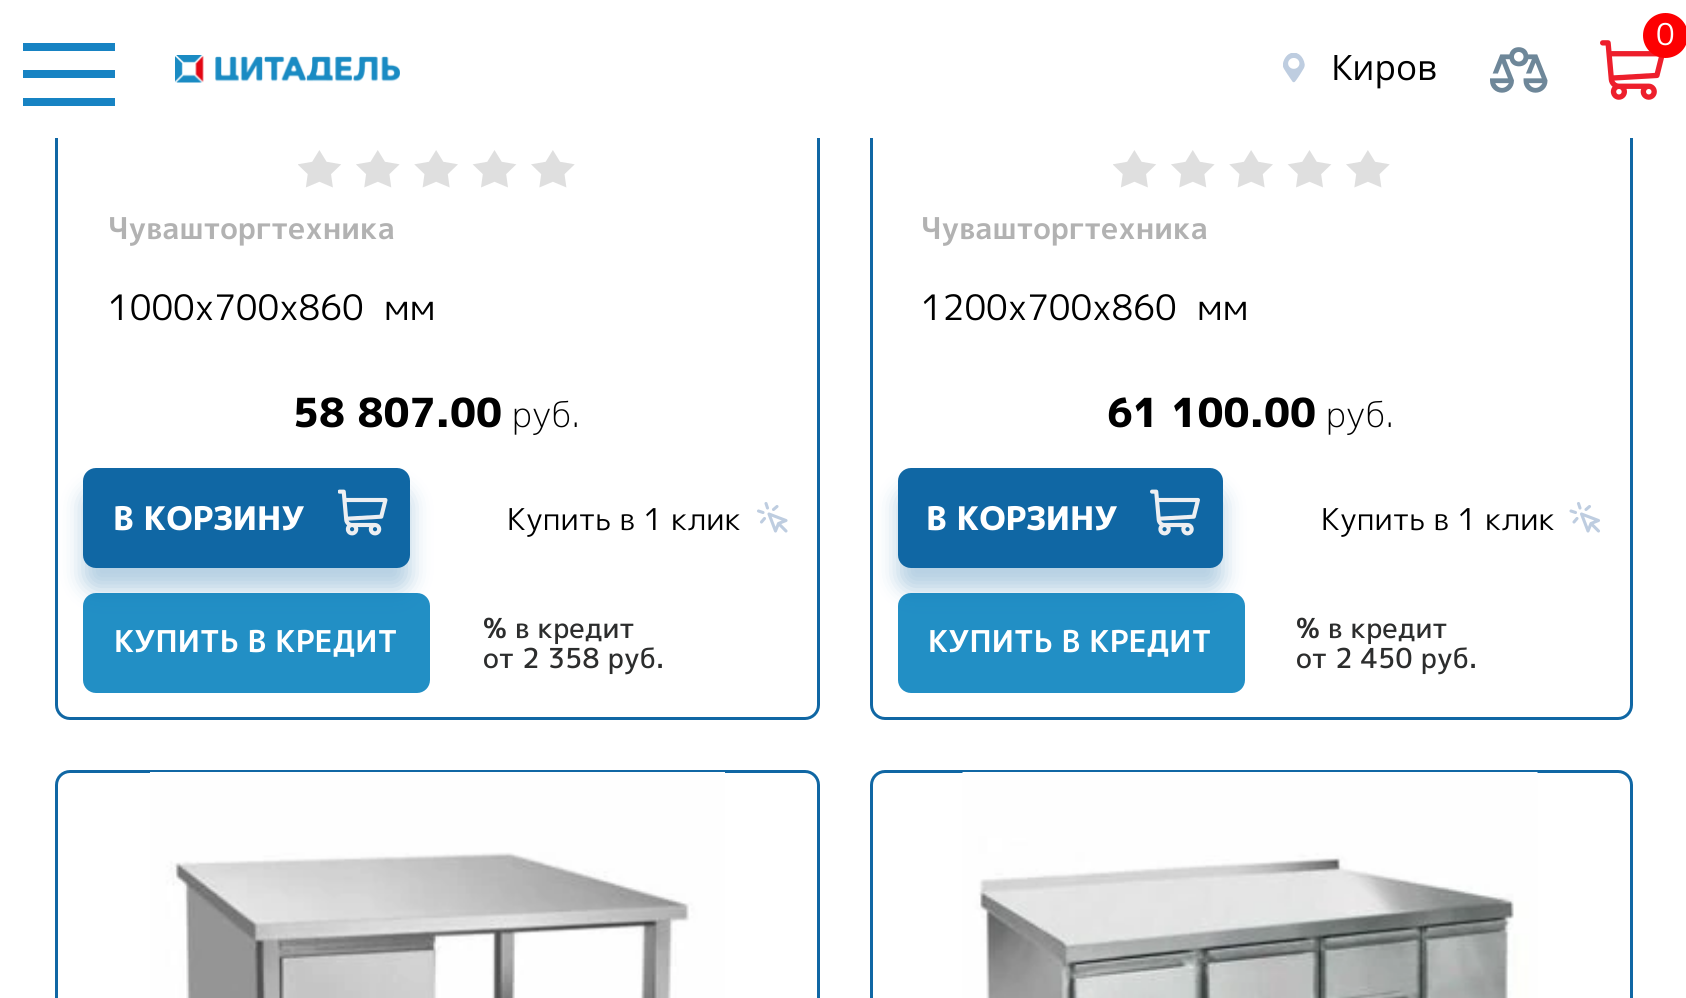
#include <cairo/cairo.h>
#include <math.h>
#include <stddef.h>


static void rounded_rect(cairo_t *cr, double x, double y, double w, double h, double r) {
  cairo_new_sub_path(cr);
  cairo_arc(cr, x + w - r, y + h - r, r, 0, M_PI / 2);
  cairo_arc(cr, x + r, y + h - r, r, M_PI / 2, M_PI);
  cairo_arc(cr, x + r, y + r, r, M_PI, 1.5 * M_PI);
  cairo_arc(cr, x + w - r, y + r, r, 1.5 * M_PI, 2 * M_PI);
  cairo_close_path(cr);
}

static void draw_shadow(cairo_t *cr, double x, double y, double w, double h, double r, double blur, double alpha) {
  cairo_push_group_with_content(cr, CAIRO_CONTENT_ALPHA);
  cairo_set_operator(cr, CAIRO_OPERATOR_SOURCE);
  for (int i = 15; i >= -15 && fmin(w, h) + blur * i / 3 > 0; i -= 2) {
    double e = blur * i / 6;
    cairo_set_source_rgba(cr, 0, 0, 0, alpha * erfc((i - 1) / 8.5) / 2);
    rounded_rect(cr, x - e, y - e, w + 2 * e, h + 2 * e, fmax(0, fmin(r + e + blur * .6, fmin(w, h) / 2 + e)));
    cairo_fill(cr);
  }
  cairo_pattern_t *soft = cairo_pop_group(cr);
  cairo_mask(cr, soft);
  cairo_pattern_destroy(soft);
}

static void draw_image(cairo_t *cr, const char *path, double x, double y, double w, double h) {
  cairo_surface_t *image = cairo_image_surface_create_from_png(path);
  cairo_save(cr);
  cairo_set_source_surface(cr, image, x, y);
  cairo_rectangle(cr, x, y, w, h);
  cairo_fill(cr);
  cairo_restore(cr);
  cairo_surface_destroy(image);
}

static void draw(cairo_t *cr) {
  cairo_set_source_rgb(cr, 1, 1, 1);
  cairo_paint(cr);
  rounded_rect(cr, 56.5, -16.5, 762, 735, 13.5);
  cairo_set_source_rgb(cr, 16 / 255.0, 103 / 255.0, 164 / 255.0);
  cairo_set_line_width(cr, 3);
  cairo_stroke(cr);
  rounded_rect(cr, 871.5, -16.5, 760, 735, 13.5);
  cairo_stroke(cr);
  cairo_set_source_rgb(cr, 1, 1, 1);
  cairo_rectangle(cr, 55, 0, 1578, 138);
  cairo_fill(cr);
  cairo_set_source_rgb(cr, 23 / 255.0, 131 / 255.0, 195 / 255.0);
  cairo_rectangle(cr, 23, 43, 92, 8);
  cairo_fill(cr);
  cairo_rectangle(cr, 23, 70, 92, 8);
  cairo_fill(cr);
  cairo_rectangle(cr, 23, 98, 92, 8);
  cairo_fill(cr);
  draw_image(cr, "images/1.png", 1600, 40, 65, 60);
  cairo_set_source_rgb(cr, 253 / 255.0, 0, 2 / 255.0);
  cairo_arc(cr, 1665.5, 35.5, 22.5, 0, 2 * M_PI);
  cairo_fill(cr);
  draw_image(cr, "images/2.png", 175, 55, 225, 28);
  draw_image(cr, "images/3.png", 1283, 53, 22, 30);
  draw_image(cr, "images/4.png", 1490, 47, 58, 46);
  draw_image(cr, "images/5.png", 298, 150, 277, 38);
  cairo_set_source_rgb(cr, 34 / 255.0, 143 / 255.0, 197 / 255.0);
  rounded_rect(cr, 83, 593, 347, 100, 13);
  cairo_fill(cr);
  cairo_set_source_rgb(cr, 16 / 255.0, 103 / 255.0, 164 / 255.0);
  draw_shadow(cr, 83, 490, 327, 100, 13, 11, 0.31);
  cairo_set_source_rgb(cr, 16 / 255.0, 103 / 255.0, 164 / 255.0);
  rounded_rect(cr, 83, 468, 327, 100, 13);
  cairo_fill(cr);
  draw_image(cr, "images/6.png", 338, 489, 50, 47);
  cairo_new_path(cr);
  cairo_move_to(cr, 778.5, 523.5);
  cairo_line_to(cr, 775.5, 531);
  cairo_line_to(cr, 769, 514);
  cairo_line_to(cr, 786, 520.5);
  cairo_close_path(cr);
  cairo_move_to(cr, 778.5, 523.5);
  cairo_line_to(cr, 786, 531);
  cairo_move_to(cr, 766, 503.5);
  cairo_line_to(cr, 767.5, 508);
  cairo_move_to(cr, 763, 512.5);
  cairo_line_to(cr, 758.5, 511);
  cairo_move_to(cr, 777, 506.5);
  cairo_line_to(cr, 773.5, 509.5);
  cairo_move_to(cr, 764.5, 518.5);
  cairo_line_to(cr, 761.5, 522);
  cairo_set_source_rgb(cr, 190 / 255.0, 205 / 255.0, 224 / 255.0);
  cairo_set_line_width(cr, 3.1);
  cairo_set_line_cap(cr, CAIRO_LINE_CAP_ROUND);
  cairo_set_line_join(cr, CAIRO_LINE_JOIN_ROUND);
  cairo_stroke(cr);
  draw_image(cr, "images/5.png", 1113, 150, 277, 38);
  cairo_set_source_rgb(cr, 34 / 255.0, 143 / 255.0, 197 / 255.0);
  rounded_rect(cr, 898, 593, 347, 100, 13);
  cairo_fill(cr);
  cairo_set_source_rgb(cr, 16 / 255.0, 103 / 255.0, 164 / 255.0);
  draw_shadow(cr, 898, 490, 325, 100, 13, 11, 0.31);
  cairo_set_source_rgb(cr, 16 / 255.0, 103 / 255.0, 164 / 255.0);
  rounded_rect(cr, 898, 468, 325, 100, 13);
  cairo_fill(cr);
  draw_image(cr, "images/7.png", 1150, 489, 50, 47);
  cairo_new_path(cr);
  cairo_move_to(cr, 1591, 523.5);
  cairo_line_to(cr, 1588, 531);
  cairo_line_to(cr, 1581.5, 514);
  cairo_line_to(cr, 1598.5, 520.5);
  cairo_close_path(cr);
  cairo_move_to(cr, 1591, 523.5);
  cairo_line_to(cr, 1598.5, 531);
  cairo_move_to(cr, 1578.5, 503.5);
  cairo_line_to(cr, 1580, 508);
  cairo_move_to(cr, 1575.5, 512.5);
  cairo_line_to(cr, 1571, 511);
  cairo_move_to(cr, 1589.5, 506.5);
  cairo_line_to(cr, 1586, 509.5);
  cairo_move_to(cr, 1577, 518.5);
  cairo_line_to(cr, 1574, 522);
  cairo_set_source_rgb(cr, 190 / 255.0, 205 / 255.0, 224 / 255.0);
  cairo_stroke(cr);
  rounded_rect(cr, 56.5, 771.5, 762, 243, 13.5);
  cairo_set_source_rgb(cr, 16 / 255.0, 103 / 255.0, 164 / 255.0);
  cairo_set_line_width(cr, 3);
  cairo_set_line_cap(cr, CAIRO_LINE_CAP_BUTT);
  cairo_set_line_join(cr, CAIRO_LINE_JOIN_MITER);
  cairo_stroke(cr);
  draw_image(cr, "images/8.png", 150, 772, 575, 226);
  rounded_rect(cr, 871.5, 771.5, 760, 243, 13.5);
  cairo_stroke(cr);
  draw_image(cr, "images/9.png", 962, 772, 576, 226);
  cairo_select_font_face(cr, "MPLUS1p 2", CAIRO_FONT_SLANT_NORMAL, CAIRO_FONT_WEIGHT_NORMAL);
  cairo_set_font_size(cr, 30);
  cairo_set_source_rgb(cr, 1, 1, 1);
  cairo_move_to(cr, 1656, 45);
  cairo_show_text(cr, "0");
  cairo_select_font_face(cr, "Open Sans", CAIRO_FONT_SLANT_NORMAL, CAIRO_FONT_WEIGHT_NORMAL);
  cairo_set_font_size(cr, 35);
  cairo_set_source_rgb(cr, 0, 0, 0);
  cairo_move_to(cr, 1331, 80);
  cairo_show_text(cr, "Киров");
  cairo_select_font_face(cr, "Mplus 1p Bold", CAIRO_FONT_SLANT_NORMAL, CAIRO_FONT_WEIGHT_BOLD);
  cairo_set_font_size(cr, 30);
  cairo_set_source_rgb(cr, 178 / 255.0, 178 / 255.0, 178 / 255.0);
  cairo_move_to(cr, 108, 239);
  cairo_show_text(cr, "Чувашторгтехника");
  cairo_select_font_face(cr, "M PLUS 1p", CAIRO_FONT_SLANT_NORMAL, CAIRO_FONT_WEIGHT_NORMAL);
  cairo_set_font_size(cr, 35);
  cairo_set_source_rgb(cr, 0, 0, 0);
  cairo_move_to(cr, 108, 320);
  cairo_show_text(cr, "1000х700х860  мм");
  cairo_select_font_face(cr, "M PLUS 1p ExtraBold", CAIRO_FONT_SLANT_NORMAL, CAIRO_FONT_WEIGHT_NORMAL);
  cairo_set_font_size(cr, 40);
  cairo_move_to(cr, 293, 427);
  cairo_show_text(cr, "58 807.00");
  cairo_select_font_face(cr, "M PLUS 1p Light", CAIRO_FONT_SLANT_NORMAL, CAIRO_FONT_WEIGHT_NORMAL);
  cairo_set_font_size(cr, 35);
  cairo_move_to(cr, 512, 427);
  cairo_show_text(cr, "руб.");
  cairo_select_font_face(cr, "M PLUS 1p ExtraBold", CAIRO_FONT_SLANT_NORMAL, CAIRO_FONT_WEIGHT_NORMAL);
  cairo_set_font_size(cr, 32.5);
  cairo_set_source_rgb(cr, 1, 1, 1);
  cairo_move_to(cr, 113, 530);
  cairo_show_text(cr, "В КОРЗИНУ");
  cairo_select_font_face(cr, "M PLUS 1p", CAIRO_FONT_SLANT_NORMAL, CAIRO_FONT_WEIGHT_NORMAL);
  cairo_set_font_size(cr, 30);
  cairo_set_source_rgb(cr, 0, 0, 0);
  cairo_move_to(cr, 507, 530);
  cairo_show_text(cr, "Купить в 1 клик");
  cairo_select_font_face(cr, "Mplus 1p Bold", CAIRO_FONT_SLANT_NORMAL, CAIRO_FONT_WEIGHT_BOLD);
  cairo_set_source_rgb(cr, 1, 1, 1);
  cairo_move_to(cr, 114, 652);
  cairo_show_text(cr, "КУПИТЬ В КРЕДИТ");
  cairo_select_font_face(cr, "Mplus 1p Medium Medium", CAIRO_FONT_SLANT_NORMAL, CAIRO_FONT_WEIGHT_NORMAL);
  cairo_set_font_size(cr, 27.5);
  cairo_set_source_rgb(cr, 44 / 255.0, 45 / 255.0, 45 / 255.0);
  cairo_move_to(cr, 483, 638);
  cairo_show_text(cr, "% в кредит");
  cairo_move_to(cr, 483, 668);
  cairo_show_text(cr, "от 2 358 руб.");
  cairo_select_font_face(cr, "Mplus 1p Bold", CAIRO_FONT_SLANT_NORMAL, CAIRO_FONT_WEIGHT_BOLD);
  cairo_set_font_size(cr, 30);
  cairo_set_source_rgb(cr, 178 / 255.0, 178 / 255.0, 178 / 255.0);
  cairo_move_to(cr, 921, 239);
  cairo_show_text(cr, "Чувашторгтехника");
  cairo_select_font_face(cr, "M PLUS 1p", CAIRO_FONT_SLANT_NORMAL, CAIRO_FONT_WEIGHT_NORMAL);
  cairo_set_font_size(cr, 35);
  cairo_set_source_rgb(cr, 0, 0, 0);
  cairo_move_to(cr, 921, 320);
  cairo_show_text(cr, "1200х700х860  мм");
  cairo_select_font_face(cr, "M PLUS 1p ExtraBold", CAIRO_FONT_SLANT_NORMAL, CAIRO_FONT_WEIGHT_NORMAL);
  cairo_set_font_size(cr, 40);
  cairo_move_to(cr, 1107, 427);
  cairo_show_text(cr, "61 100.00");
  cairo_select_font_face(cr, "M PLUS 1p Light", CAIRO_FONT_SLANT_NORMAL, CAIRO_FONT_WEIGHT_NORMAL);
  cairo_set_font_size(cr, 35);
  cairo_move_to(cr, 1326, 427);
  cairo_show_text(cr, "руб.");
  cairo_select_font_face(cr, "M PLUS 1p ExtraBold", CAIRO_FONT_SLANT_NORMAL, CAIRO_FONT_WEIGHT_NORMAL);
  cairo_set_font_size(cr, 32.5);
  cairo_set_source_rgb(cr, 1, 1, 1);
  cairo_move_to(cr, 926, 530);
  cairo_show_text(cr, "В КОРЗИНУ");
  cairo_select_font_face(cr, "M PLUS 1p", CAIRO_FONT_SLANT_NORMAL, CAIRO_FONT_WEIGHT_NORMAL);
  cairo_set_font_size(cr, 30);
  cairo_set_source_rgb(cr, 0, 0, 0);
  cairo_move_to(cr, 1321, 530);
  cairo_show_text(cr, "Купить в 1 клик");
  cairo_select_font_face(cr, "Mplus 1p Bold", CAIRO_FONT_SLANT_NORMAL, CAIRO_FONT_WEIGHT_BOLD);
  cairo_set_source_rgb(cr, 1, 1, 1);
  cairo_move_to(cr, 928, 652);
  cairo_show_text(cr, "КУПИТЬ В КРЕДИТ");
  cairo_select_font_face(cr, "Mplus 1p Medium Medium", CAIRO_FONT_SLANT_NORMAL, CAIRO_FONT_WEIGHT_NORMAL);
  cairo_set_font_size(cr, 27.5);
  cairo_set_source_rgb(cr, 44 / 255.0, 45 / 255.0, 45 / 255.0);
  cairo_move_to(cr, 1296, 638);
  cairo_show_text(cr, "% в кредит");
  cairo_move_to(cr, 1296, 668);
  cairo_show_text(cr, "от 2 450 руб.");
}

int main(void) {
  cairo_surface_t *surface = cairo_image_surface_create(CAIRO_FORMAT_RGB24, 1686, 998);
  cairo_t *cr = cairo_create(surface);
  cairo_font_options_t *options = cairo_font_options_create();
  cairo_font_options_set_hint_metrics(options, CAIRO_HINT_METRICS_OFF);
  cairo_font_options_set_hint_style(options, CAIRO_HINT_STYLE_NONE);
  cairo_set_font_options(cr, options);
  cairo_set_miter_limit(cr, 4);
  draw(cr);
  cairo_surface_write_to_png(surface, "out.png");
  cairo_font_options_destroy(options);
  cairo_destroy(cr);
  cairo_surface_destroy(surface);
  return 0;
}
